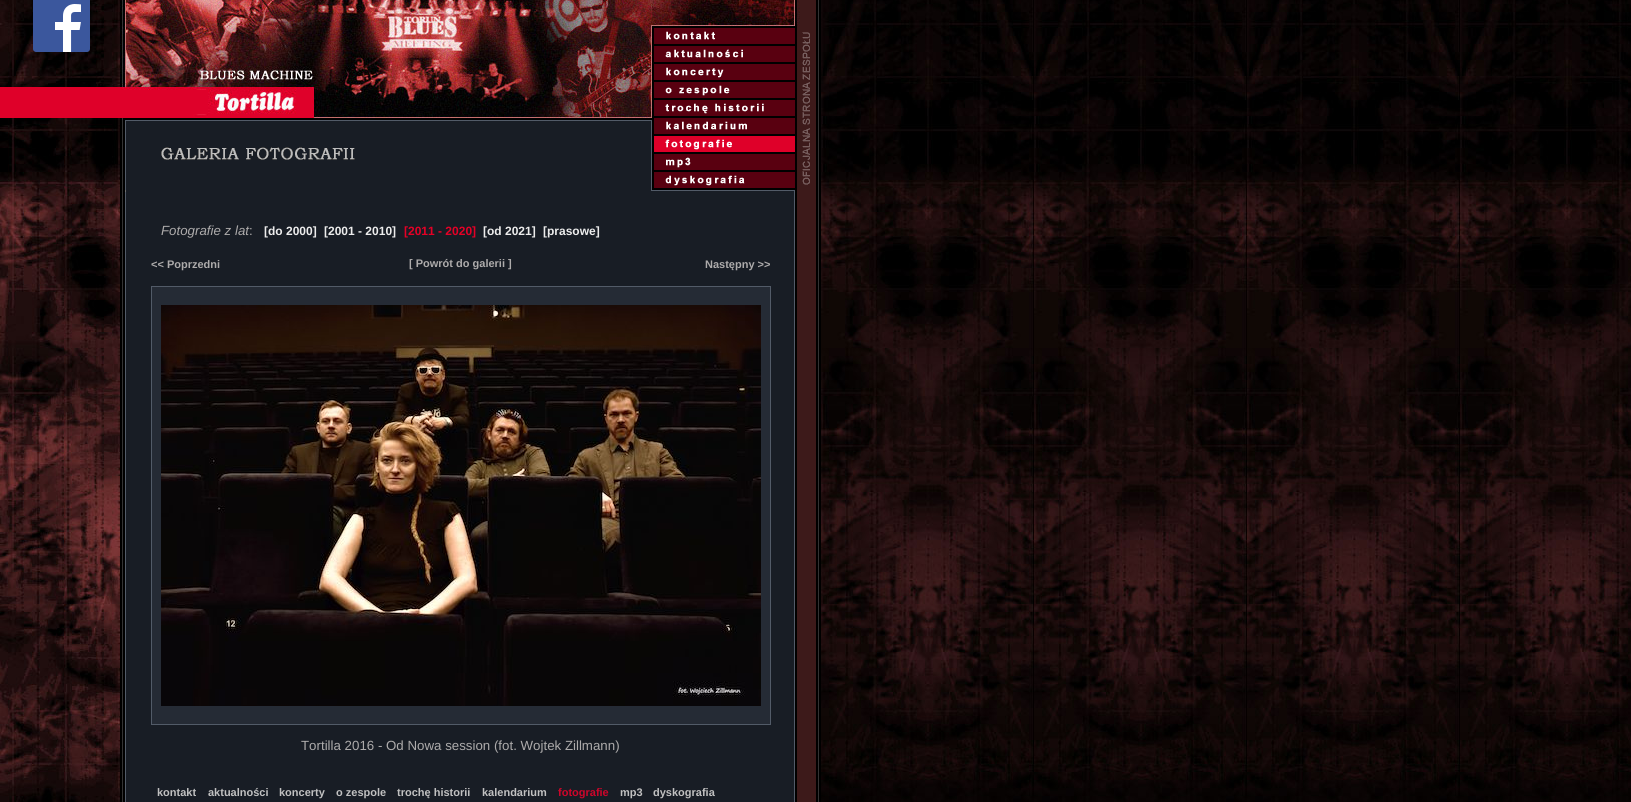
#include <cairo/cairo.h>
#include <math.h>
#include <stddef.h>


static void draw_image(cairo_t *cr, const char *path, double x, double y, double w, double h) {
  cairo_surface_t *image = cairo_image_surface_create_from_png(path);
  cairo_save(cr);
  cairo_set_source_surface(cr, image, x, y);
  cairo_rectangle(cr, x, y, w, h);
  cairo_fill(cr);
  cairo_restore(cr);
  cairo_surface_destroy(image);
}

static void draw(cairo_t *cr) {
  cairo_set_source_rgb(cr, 0, 0, 0);
  cairo_paint(cr);
  draw_image(cr, "images/1.png", 0, 0, 120, 802);
  draw_image(cr, "images/2.png", 0, 0, 120, 118);
  draw_image(cr, "images/3.png", 800, 0, 19, 26);
  draw_image(cr, "images/4.png", 120, 0, 680, 26);
  draw_image(cr, "images/5.png", 120, 26, 532, 92);
  draw_image(cr, "images/6.png", 654, 28, 141, 16);
  draw_image(cr, "images/7.png", 654, 46, 141, 16);
  draw_image(cr, "images/8.png", 654, 64, 141, 16);
  draw_image(cr, "images/9.png", 654, 82, 141, 16);
  draw_image(cr, "images/10.png", 654, 100, 141, 16);
  draw_image(cr, "images/11.png", 654, 118, 141, 16);
  draw_image(cr, "images/12.png", 654, 136, 141, 16);
  draw_image(cr, "images/13.png", 654, 154, 141, 16);
  draw_image(cr, "images/14.png", 654, 172, 141, 16);
  draw_image(cr, "images/15.png", 797, 26, 22, 164);
  draw_image(cr, "images/16.png", 122, 118, 530, 72);
  draw_image(cr, "images/17.png", 161, 147, 194, 13);
  draw_image(cr, "images/18.png", 122, 190, 697, 2);
  draw_image(cr, "images/19.png", 122, 192, 697, 561);
  cairo_set_source_rgb(cr, 37 / 255.0, 43 / 255.0, 53 / 255.0);
  cairo_rectangle(cr, 151.5, 286.5, 619, 438);
  cairo_fill_preserve(cr);
  cairo_set_source_rgb(cr, 82 / 255.0, 91 / 255.0, 104 / 255.0);
  cairo_set_line_width(cr, 1);
  cairo_stroke(cr);
  draw_image(cr, "images/20.png", 161, 305, 600, 401);
  draw_image(cr, "images/21.png", 122, 753, 697, 49);
  draw_image(cr, "images/22.png", 821, 0, 810, 802);
  cairo_select_font_face(cr, "Liberation Sans", CAIRO_FONT_SLANT_ITALIC, CAIRO_FONT_WEIGHT_NORMAL);
  cairo_set_font_size(cr, 13.3);
  cairo_set_source_rgb(cr, 173 / 255.0, 171 / 255.0, 171 / 255.0);
  cairo_move_to(cr, 161, 235);
  cairo_show_text(cr, "Fotografie z lat");
  cairo_select_font_face(cr, "Liberation Sans", CAIRO_FONT_SLANT_NORMAL, CAIRO_FONT_WEIGHT_NORMAL);
  cairo_move_to(cr, 249, 235);
  cairo_show_text(cr, ":");
  cairo_select_font_face(cr, "Liberation Sans", CAIRO_FONT_SLANT_NORMAL, CAIRO_FONT_WEIGHT_BOLD);
  cairo_set_font_size(cr, 12);
  cairo_set_source_rgb(cr, 236 / 255.0, 236 / 255.0, 236 / 255.0);
  cairo_move_to(cr, 264, 235);
  cairo_show_text(cr, "[do 2000]");
  cairo_move_to(cr, 324, 235);
  cairo_show_text(cr, "[2001 - 2010]");
  cairo_set_source_rgb(cr, 229 / 255.0, 0, 38 / 255.0);
  cairo_move_to(cr, 404, 235);
  cairo_show_text(cr, "[2011 - 2020]");
  cairo_set_source_rgb(cr, 236 / 255.0, 236 / 255.0, 236 / 255.0);
  cairo_move_to(cr, 483, 235);
  cairo_show_text(cr, "[od 2021]");
  cairo_move_to(cr, 543, 235);
  cairo_show_text(cr, "[prasowe]");
  cairo_set_font_size(cr, 11);
  cairo_set_source_rgb(cr, 173 / 255.0, 171 / 255.0, 171 / 255.0);
  cairo_move_to(cr, 151, 268);
  cairo_show_text(cr, "<< Poprzedni");
  cairo_move_to(cr, 409, 267);
  cairo_show_text(cr, "[ Powrót do galerii ]");
  cairo_move_to(cr, 705, 268);
  cairo_show_text(cr, "Następny >>");
  cairo_select_font_face(cr, "Liberation Sans", CAIRO_FONT_SLANT_NORMAL, CAIRO_FONT_WEIGHT_NORMAL);
  cairo_set_font_size(cr, 13.3);
  cairo_move_to(cr, 301, 750);
  cairo_show_text(cr, "Tortilla 2016 - Od Nowa session (fot. Wojtek Zillmann)");
  cairo_select_font_face(cr, "Liberation Sans", CAIRO_FONT_SLANT_NORMAL, CAIRO_FONT_WEIGHT_BOLD);
  cairo_set_font_size(cr, 11);
  cairo_set_source_rgb(cr, 193 / 255.0, 193 / 255.0, 193 / 255.0);
  cairo_move_to(cr, 157, 796);
  cairo_show_text(cr, "kontakt");
  cairo_move_to(cr, 208, 796);
  cairo_show_text(cr, "aktualności");
  cairo_move_to(cr, 279, 796);
  cairo_show_text(cr, "koncerty");
  cairo_move_to(cr, 336, 796);
  cairo_show_text(cr, "o zespole");
  cairo_move_to(cr, 397, 796);
  cairo_show_text(cr, "trochę historii");
  cairo_move_to(cr, 482, 796);
  cairo_show_text(cr, "kalendarium");
  cairo_set_source_rgb(cr, 206 / 255.0, 5 / 255.0, 42 / 255.0);
  cairo_move_to(cr, 558, 796);
  cairo_show_text(cr, "fotografie");
  cairo_set_source_rgb(cr, 193 / 255.0, 193 / 255.0, 193 / 255.0);
  cairo_move_to(cr, 620, 796);
  cairo_show_text(cr, "mp3");
  cairo_move_to(cr, 653, 796);
  cairo_show_text(cr, "dyskografia");
}

int main(void) {
  cairo_surface_t *surface = cairo_image_surface_create(CAIRO_FORMAT_RGB24, 1631, 802);
  cairo_t *cr = cairo_create(surface);
  cairo_font_options_t *options = cairo_font_options_create();
  cairo_font_options_set_hint_metrics(options, CAIRO_HINT_METRICS_OFF);
  cairo_font_options_set_hint_style(options, CAIRO_HINT_STYLE_NONE);
  cairo_set_font_options(cr, options);
  cairo_set_miter_limit(cr, 4);
  draw(cr);
  cairo_surface_write_to_png(surface, "out.png");
  cairo_font_options_destroy(options);
  cairo_destroy(cr);
  cairo_surface_destroy(surface);
  return 0;
}
